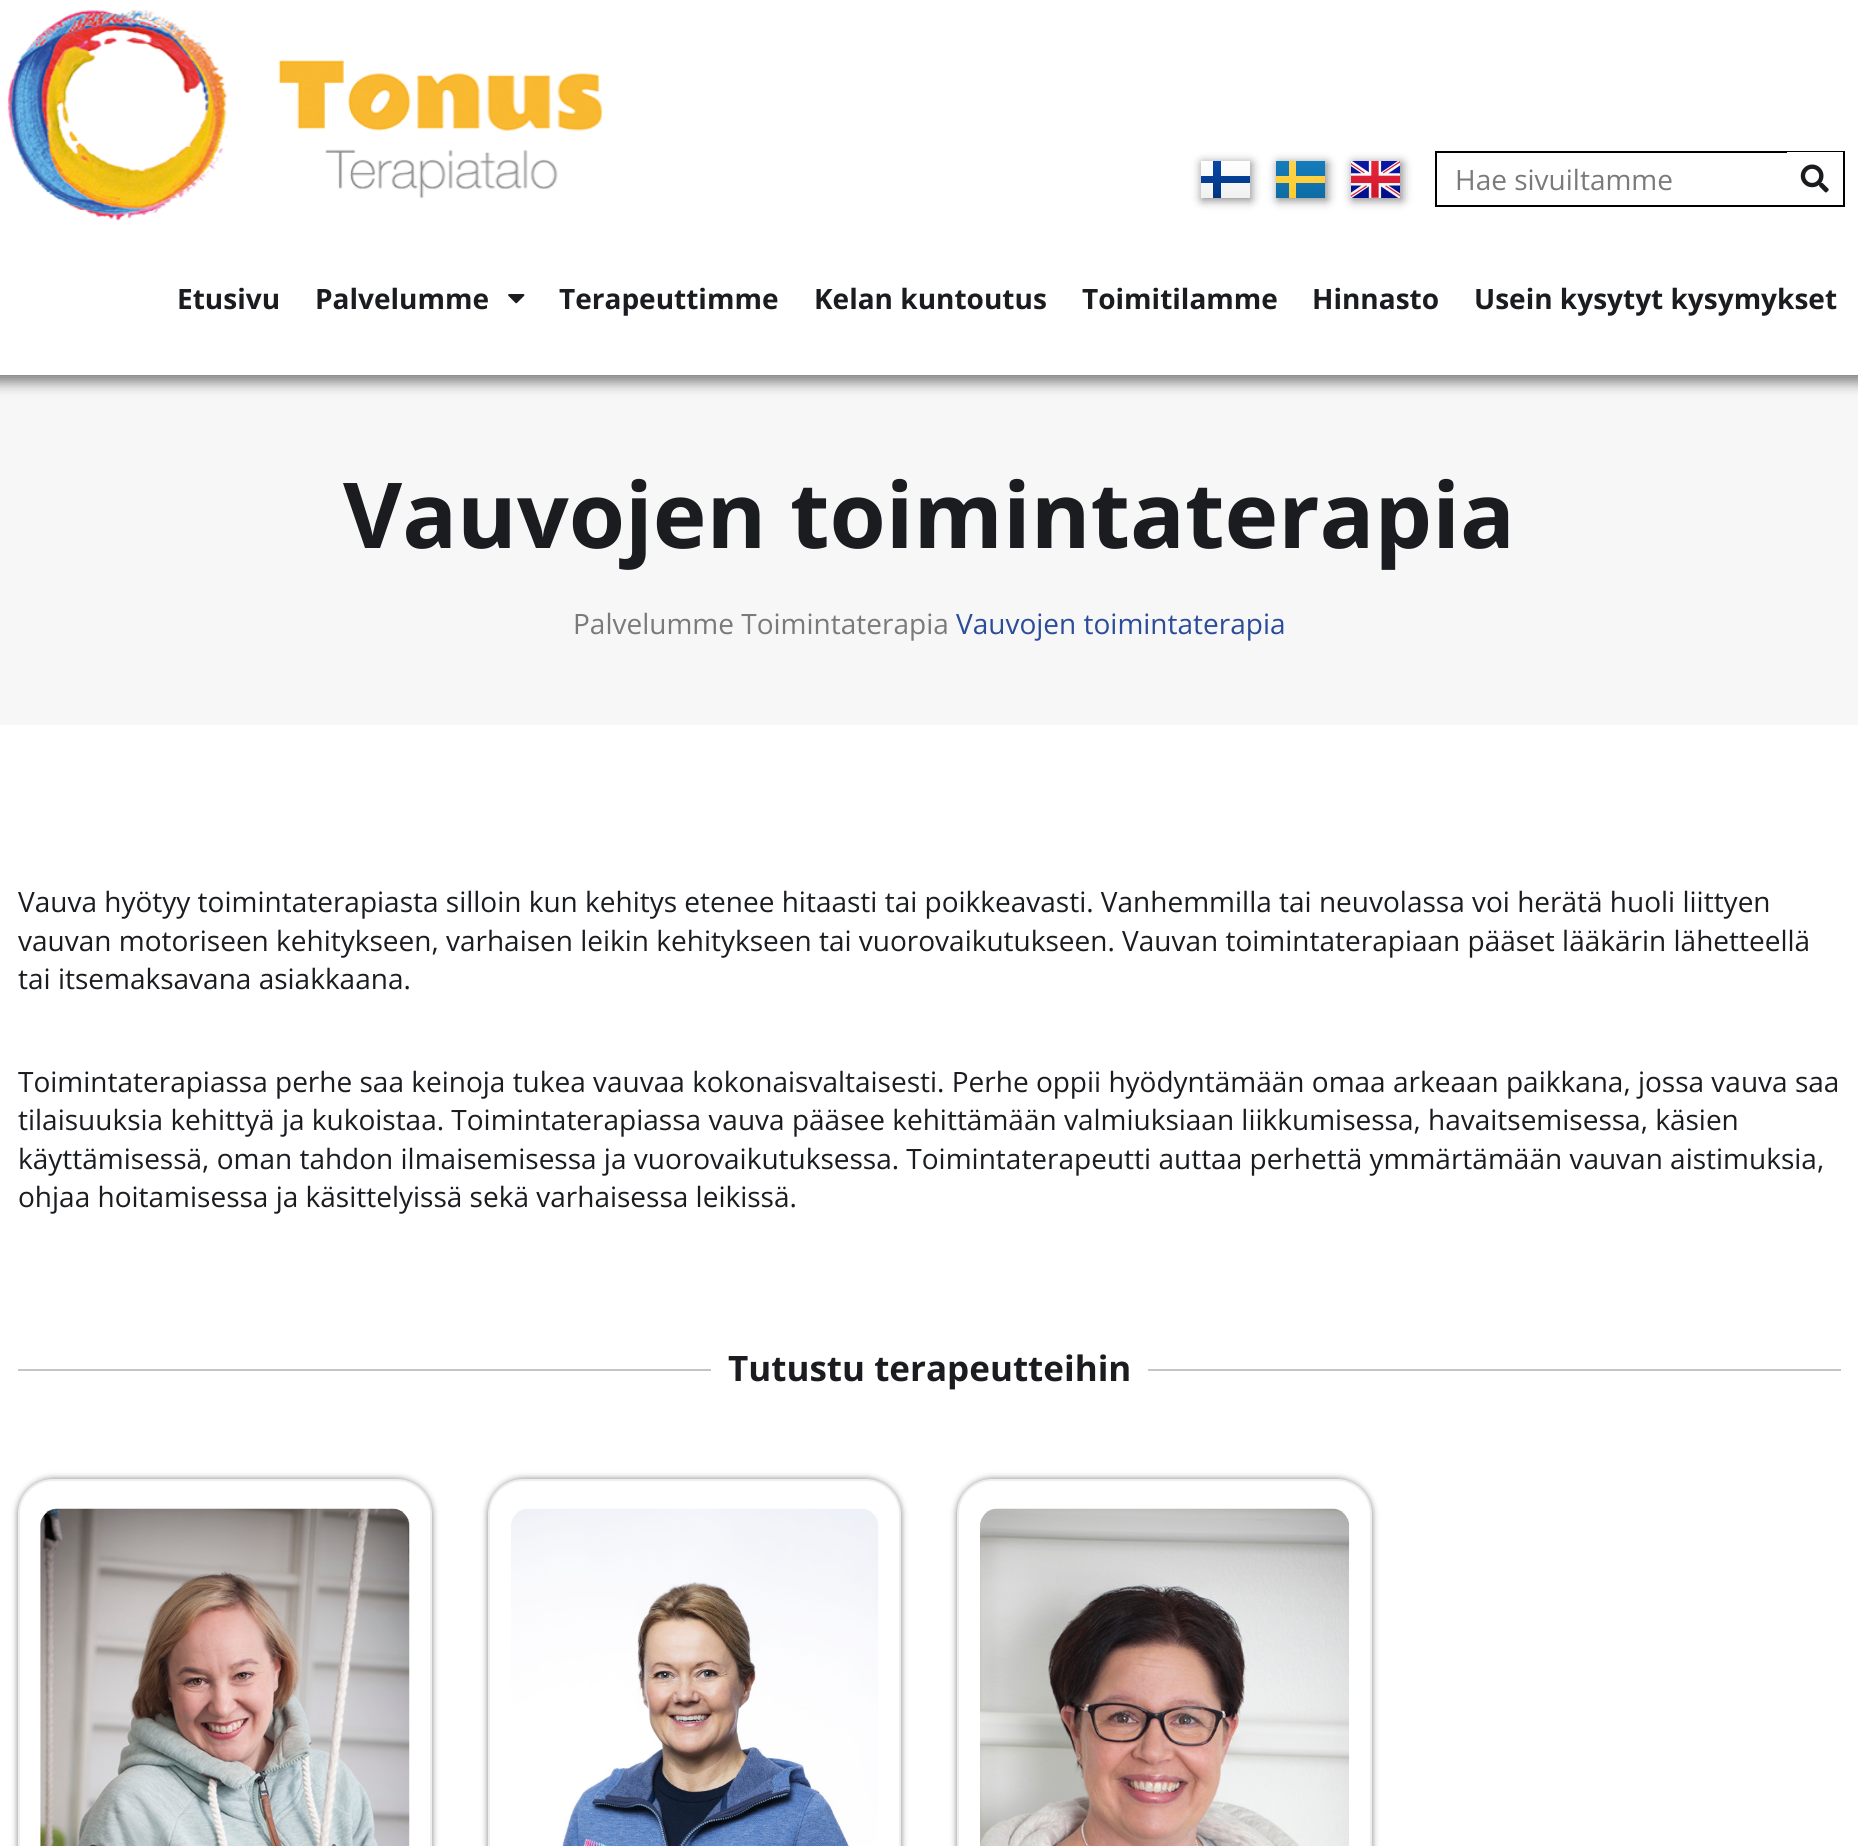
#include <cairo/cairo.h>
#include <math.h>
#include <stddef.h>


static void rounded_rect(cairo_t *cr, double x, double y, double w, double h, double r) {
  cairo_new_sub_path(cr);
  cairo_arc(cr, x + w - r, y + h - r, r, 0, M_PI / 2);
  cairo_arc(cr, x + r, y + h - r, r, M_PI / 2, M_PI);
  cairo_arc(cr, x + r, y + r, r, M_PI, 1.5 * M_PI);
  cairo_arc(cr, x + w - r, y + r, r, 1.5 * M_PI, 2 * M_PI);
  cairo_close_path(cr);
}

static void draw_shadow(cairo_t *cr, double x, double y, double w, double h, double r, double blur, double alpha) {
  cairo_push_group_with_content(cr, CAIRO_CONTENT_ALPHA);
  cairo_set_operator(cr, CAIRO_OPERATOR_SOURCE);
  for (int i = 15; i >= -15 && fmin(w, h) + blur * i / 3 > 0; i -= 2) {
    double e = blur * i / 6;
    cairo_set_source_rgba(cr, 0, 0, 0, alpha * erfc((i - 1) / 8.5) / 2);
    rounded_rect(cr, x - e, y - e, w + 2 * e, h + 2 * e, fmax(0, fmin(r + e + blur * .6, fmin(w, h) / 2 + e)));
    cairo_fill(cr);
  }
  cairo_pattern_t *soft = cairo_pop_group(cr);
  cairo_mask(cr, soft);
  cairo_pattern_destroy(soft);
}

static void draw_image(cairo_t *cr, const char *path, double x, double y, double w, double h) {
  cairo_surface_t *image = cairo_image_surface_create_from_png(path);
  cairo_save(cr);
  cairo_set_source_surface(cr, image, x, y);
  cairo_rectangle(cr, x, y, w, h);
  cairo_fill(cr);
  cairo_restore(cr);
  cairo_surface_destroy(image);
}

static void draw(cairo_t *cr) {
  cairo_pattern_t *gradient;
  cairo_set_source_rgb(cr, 1, 1, 1);
  cairo_paint(cr);
  cairo_set_source_rgb(cr, 247 / 255.0, 247 / 255.0, 247 / 255.0);
  cairo_rectangle(cr, 0, 375, 1858, 350);
  cairo_fill(cr);
  cairo_set_source_rgb(cr, 0, 0, 0);
  draw_shadow(cr, -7, -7, 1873, 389, 0, 7, 0.5);
  cairo_set_source_rgb(cr, 1, 1, 1);
  cairo_rectangle(cr, 0, 0, 1858, 375);
  cairo_fill(cr);
  draw_image(cr, "images/1.png", 7, 9, 595, 212);
  cairo_set_source_rgb(cr, 0, 0, 0);
  draw_shadow(cr, 1202, 163, 49, 37, 0, 5, 0.5);
  gradient = cairo_pattern_create_linear(1224, 161, 1224, 198);
  cairo_pattern_add_color_stop_rgba(gradient, 0, 1, 1, 1, 1);
  cairo_pattern_add_color_stop_rgba(gradient, 1, 240 / 255.0, 240 / 255.0, 240 / 255.0, 1);
  cairo_set_source(cr, gradient);
  cairo_pattern_destroy(gradient);
  cairo_rectangle(cr, 1201, 161, 49, 37);
  cairo_fill(cr);
  cairo_save(cr);
  cairo_rectangle(cr, 1201, 161, 49, 37);
  cairo_clip(cr);
  gradient = cairo_pattern_create_linear(1224, 161, 1224, 198);
  cairo_pattern_add_color_stop_rgba(gradient, 0, 8 / 255.0, 72 / 255.0, 166 / 255.0, 1);
  cairo_pattern_add_color_stop_rgba(gradient, 1, 0, 52 / 255.0, 128 / 255.0, 1);
  cairo_set_source(cr, gradient);
  cairo_pattern_destroy(gradient);
  cairo_set_fill_rule(cr, CAIRO_FILL_RULE_EVEN_ODD);
  cairo_new_path(cr);
  cairo_move_to(cr, 1199, 183);
  cairo_line_to(cr, 1213, 183);
  cairo_line_to(cr, 1213, 198);
  cairo_line_to(cr, 1221, 198);
  cairo_line_to(cr, 1221, 183);
  cairo_line_to(cr, 1250, 183);
  cairo_line_to(cr, 1250, 176);
  cairo_line_to(cr, 1221, 176);
  cairo_line_to(cr, 1221, 161);
  cairo_line_to(cr, 1213, 161);
  cairo_line_to(cr, 1213, 176);
  cairo_line_to(cr, 1199, 176);
  cairo_close_path(cr);
  cairo_fill(cr);
  cairo_restore(cr);
  cairo_set_source_rgb(cr, 0, 0, 0);
  draw_shadow(cr, 1278, 163, 49, 37, 0, 5, 0.5);
  gradient = cairo_pattern_create_linear(1300, 161, 1300, 198);
  cairo_pattern_add_color_stop_rgba(gradient, 0, 21 / 255.0, 124 / 255.0, 187 / 255.0, 1);
  cairo_pattern_add_color_stop_rgba(gradient, 1, 14 / 255.0, 108 / 255.0, 165 / 255.0, 1);
  cairo_set_source(cr, gradient);
  cairo_pattern_destroy(gradient);
  cairo_rectangle(cr, 1276, 161, 49, 37);
  cairo_fill(cr);
  cairo_save(cr);
  cairo_rectangle(cr, 1276, 161, 49, 37);
  cairo_clip(cr);
  gradient = cairo_pattern_create_linear(1300, 161, 1300, 198);
  cairo_pattern_add_color_stop_rgba(gradient, 0, 1, 211 / 255.0, 77 / 255.0, 1);
  cairo_pattern_add_color_stop_rgba(gradient, 1, 254 / 255.0, 203 / 255.0, 47 / 255.0, 1);
  cairo_set_source(cr, gradient);
  cairo_pattern_destroy(gradient);
  cairo_set_fill_rule(cr, CAIRO_FILL_RULE_EVEN_ODD);
  cairo_new_path(cr);
  cairo_move_to(cr, 1274, 183);
  cairo_line_to(cr, 1289, 183);
  cairo_line_to(cr, 1289, 198);
  cairo_line_to(cr, 1296, 198);
  cairo_line_to(cr, 1296, 183);
  cairo_line_to(cr, 1325, 183);
  cairo_line_to(cr, 1325, 176);
  cairo_line_to(cr, 1296, 176);
  cairo_line_to(cr, 1296, 161);
  cairo_line_to(cr, 1289, 161);
  cairo_line_to(cr, 1289, 176);
  cairo_line_to(cr, 1274, 176);
  cairo_close_path(cr);
  cairo_fill(cr);
  cairo_restore(cr);
  cairo_set_source_rgb(cr, 0, 0, 0);
  draw_shadow(cr, 1353, 163, 49, 37, 0, 5, 0.5);
  draw_image(cr, "images/2.png", 1351, 161, 49, 37);
  cairo_rectangle(cr, 1436, 152, 408, 54);
  cairo_set_source_rgb(cr, 0, 0, 0);
  cairo_stroke(cr);
  cairo_set_source_rgb(cr, 1, 1, 1);
  cairo_rectangle(cr, 1787, 152, 56, 1);
  cairo_fill(cr);
  draw_image(cr, "images/3.png", 1800, 164, 29, 29);
  draw_image(cr, "images/4.png", 508, 294, 17, 10);
  cairo_set_source_rgb(cr, 197 / 255.0, 197 / 255.0, 197 / 255.0);
  cairo_rectangle(cr, 18, 1369, 693, 2);
  cairo_fill(cr);
  cairo_rectangle(cr, 1148, 1369, 693, 2);
  cairo_fill(cr);
  cairo_set_source_rgb(cr, 0, 0, 0);
  draw_shadow(cr, 18, 1479, 414, 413, 35, 3.5, 0.5);
  cairo_set_source_rgb(cr, 1, 1, 1);
  rounded_rect(cr, 18, 1479, 414, 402, 35);
  cairo_fill(cr);
  rounded_rect(cr, 19, 1480, 412, 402, 34);
  cairo_set_source_rgba(cr, 139 / 255.0, 141 / 255.0, 148 / 255.0, 0.15);
  cairo_stroke(cr);
  draw_image(cr, "images/5.png", 40, 1508, 370, 338);
  cairo_set_source_rgb(cr, 0, 0, 0);
  draw_shadow(cr, 488, 1479, 413, 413, 35, 3.5, 0.5);
  cairo_set_source_rgb(cr, 1, 1, 1);
  rounded_rect(cr, 488, 1479, 413, 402, 35);
  cairo_fill(cr);
  rounded_rect(cr, 489, 1480, 411, 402, 34);
  cairo_set_source_rgba(cr, 139 / 255.0, 141 / 255.0, 148 / 255.0, 0.15);
  cairo_stroke(cr);
  draw_image(cr, "images/6.png", 511, 1508, 368, 338);
  cairo_set_source_rgb(cr, 0, 0, 0);
  draw_shadow(cr, 957, 1479, 415, 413, 35, 3.5, 0.5);
  cairo_set_source_rgb(cr, 1, 1, 1);
  rounded_rect(cr, 957, 1479, 415, 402, 35);
  cairo_fill(cr);
  rounded_rect(cr, 958, 1480, 413, 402, 34);
  cairo_set_source_rgba(cr, 139 / 255.0, 141 / 255.0, 148 / 255.0, 0.15);
  cairo_stroke(cr);
  draw_image(cr, "images/7.png", 980, 1508, 370, 338);
  cairo_select_font_face(cr, "Open Sans", CAIRO_FONT_SLANT_NORMAL, CAIRO_FONT_WEIGHT_NORMAL);
  cairo_set_font_size(cr, 28);
  cairo_set_source_rgb(cr, 122 / 255.0, 122 / 255.0, 122 / 255.0);
  cairo_move_to(cr, 1455, 190);
  cairo_show_text(cr, "Hae sivuiltamme");
  cairo_select_font_face(cr, "Open Sans", CAIRO_FONT_SLANT_NORMAL, CAIRO_FONT_WEIGHT_BOLD);
  cairo_set_source_rgb(cr, 26 / 255.0, 28 / 255.0, 32 / 255.0);
  cairo_move_to(cr, 177, 309);
  cairo_show_text(cr, "Etusivu");
  cairo_move_to(cr, 315, 309);
  cairo_show_text(cr, "Palvelumme");
  cairo_move_to(cr, 559, 309);
  cairo_show_text(cr, "Terapeuttimme");
  cairo_move_to(cr, 814, 309);
  cairo_show_text(cr, "Kelan kuntoutus");
  cairo_move_to(cr, 1082, 309);
  cairo_show_text(cr, "Toimitilamme");
  cairo_move_to(cr, 1312, 309);
  cairo_show_text(cr, "Hinnasto");
  cairo_move_to(cr, 1474, 309);
  cairo_show_text(cr, "Usein kysytyt kysymykset");
  cairo_set_font_size(cr, 91);
  cairo_move_to(cr, 343, 548);
  cairo_show_text(cr, "Vauvojen toimintaterapia");
  cairo_select_font_face(cr, "Open Sans", CAIRO_FONT_SLANT_NORMAL, CAIRO_FONT_WEIGHT_NORMAL);
  cairo_set_font_size(cr, 28);
  cairo_set_source_rgb(cr, 122 / 255.0, 122 / 255.0, 122 / 255.0);
  cairo_move_to(cr, 573, 634);
  cairo_show_text(cr, "Palvelumme Toimintaterapia");
  cairo_set_source_rgb(cr, 42 / 255.0, 76 / 255.0, 153 / 255.0);
  cairo_move_to(cr, 956, 634);
  cairo_show_text(cr, "Vauvojen toimintaterapia");
  cairo_set_source_rgb(cr, 26 / 255.0, 28 / 255.0, 32 / 255.0);
  cairo_move_to(cr, 18, 912);
  cairo_show_text(cr, "Vauva hyötyy toimintaterapiasta silloin kun kehitys etenee hitaasti tai poikkeavasti. Vanhemmilla tai neuvolassa voi herätä huoli liittyen");
  cairo_move_to(cr, 18, 951);
  cairo_show_text(cr, "vauvan motoriseen kehitykseen, varhaisen leikin kehitykseen tai vuorovaikutukseen. Vauvan toimintaterapiaan pääset lääkärin lähetteellä");
  cairo_move_to(cr, 18, 989);
  cairo_show_text(cr, "tai itsemaksavana asiakkaana.");
  cairo_move_to(cr, 18, 1092);
  cairo_show_text(cr, "Toimintaterapiassa perhe saa keinoja tukea vauvaa kokonaisvaltaisesti. Perhe oppii hyödyntämään omaa arkeaan paikkana, jossa vauva saa");
  cairo_move_to(cr, 18, 1130);
  cairo_show_text(cr, "tilaisuuksia kehittyä ja kukoistaa. Toimintaterapiassa vauva pääsee kehittämään valmiuksiaan liikkumisessa, havaitsemisessa, käsien");
  cairo_move_to(cr, 18, 1169);
  cairo_show_text(cr, "käyttämisessä, oman tahdon ilmaisemisessa ja vuorovaikutuksessa. Toimintaterapeutti auttaa perhettä ymmärtämään vauvan aistimuksia,");
  cairo_move_to(cr, 18, 1207);
  cairo_show_text(cr, "ohjaa hoitamisessa ja käsittelyissä sekä varhaisessa leikissä.");
  cairo_select_font_face(cr, "Open Sans", CAIRO_FONT_SLANT_NORMAL, CAIRO_FONT_WEIGHT_BOLD);
  cairo_set_font_size(cr, 35);
  cairo_move_to(cr, 728, 1381);
  cairo_show_text(cr, "Tutustu terapeutteihin");
}

int main(void) {
  cairo_surface_t *surface = cairo_image_surface_create(CAIRO_FORMAT_RGB24, 1858, 1846);
  cairo_t *cr = cairo_create(surface);
  cairo_font_options_t *options = cairo_font_options_create();
  cairo_font_options_set_hint_metrics(options, CAIRO_HINT_METRICS_OFF);
  cairo_font_options_set_hint_style(options, CAIRO_HINT_STYLE_NONE);
  cairo_set_font_options(cr, options);
  cairo_set_miter_limit(cr, 4);
  draw(cr);
  cairo_surface_write_to_png(surface, "out.png");
  cairo_font_options_destroy(options);
  cairo_destroy(cr);
  cairo_surface_destroy(surface);
  return 0;
}
